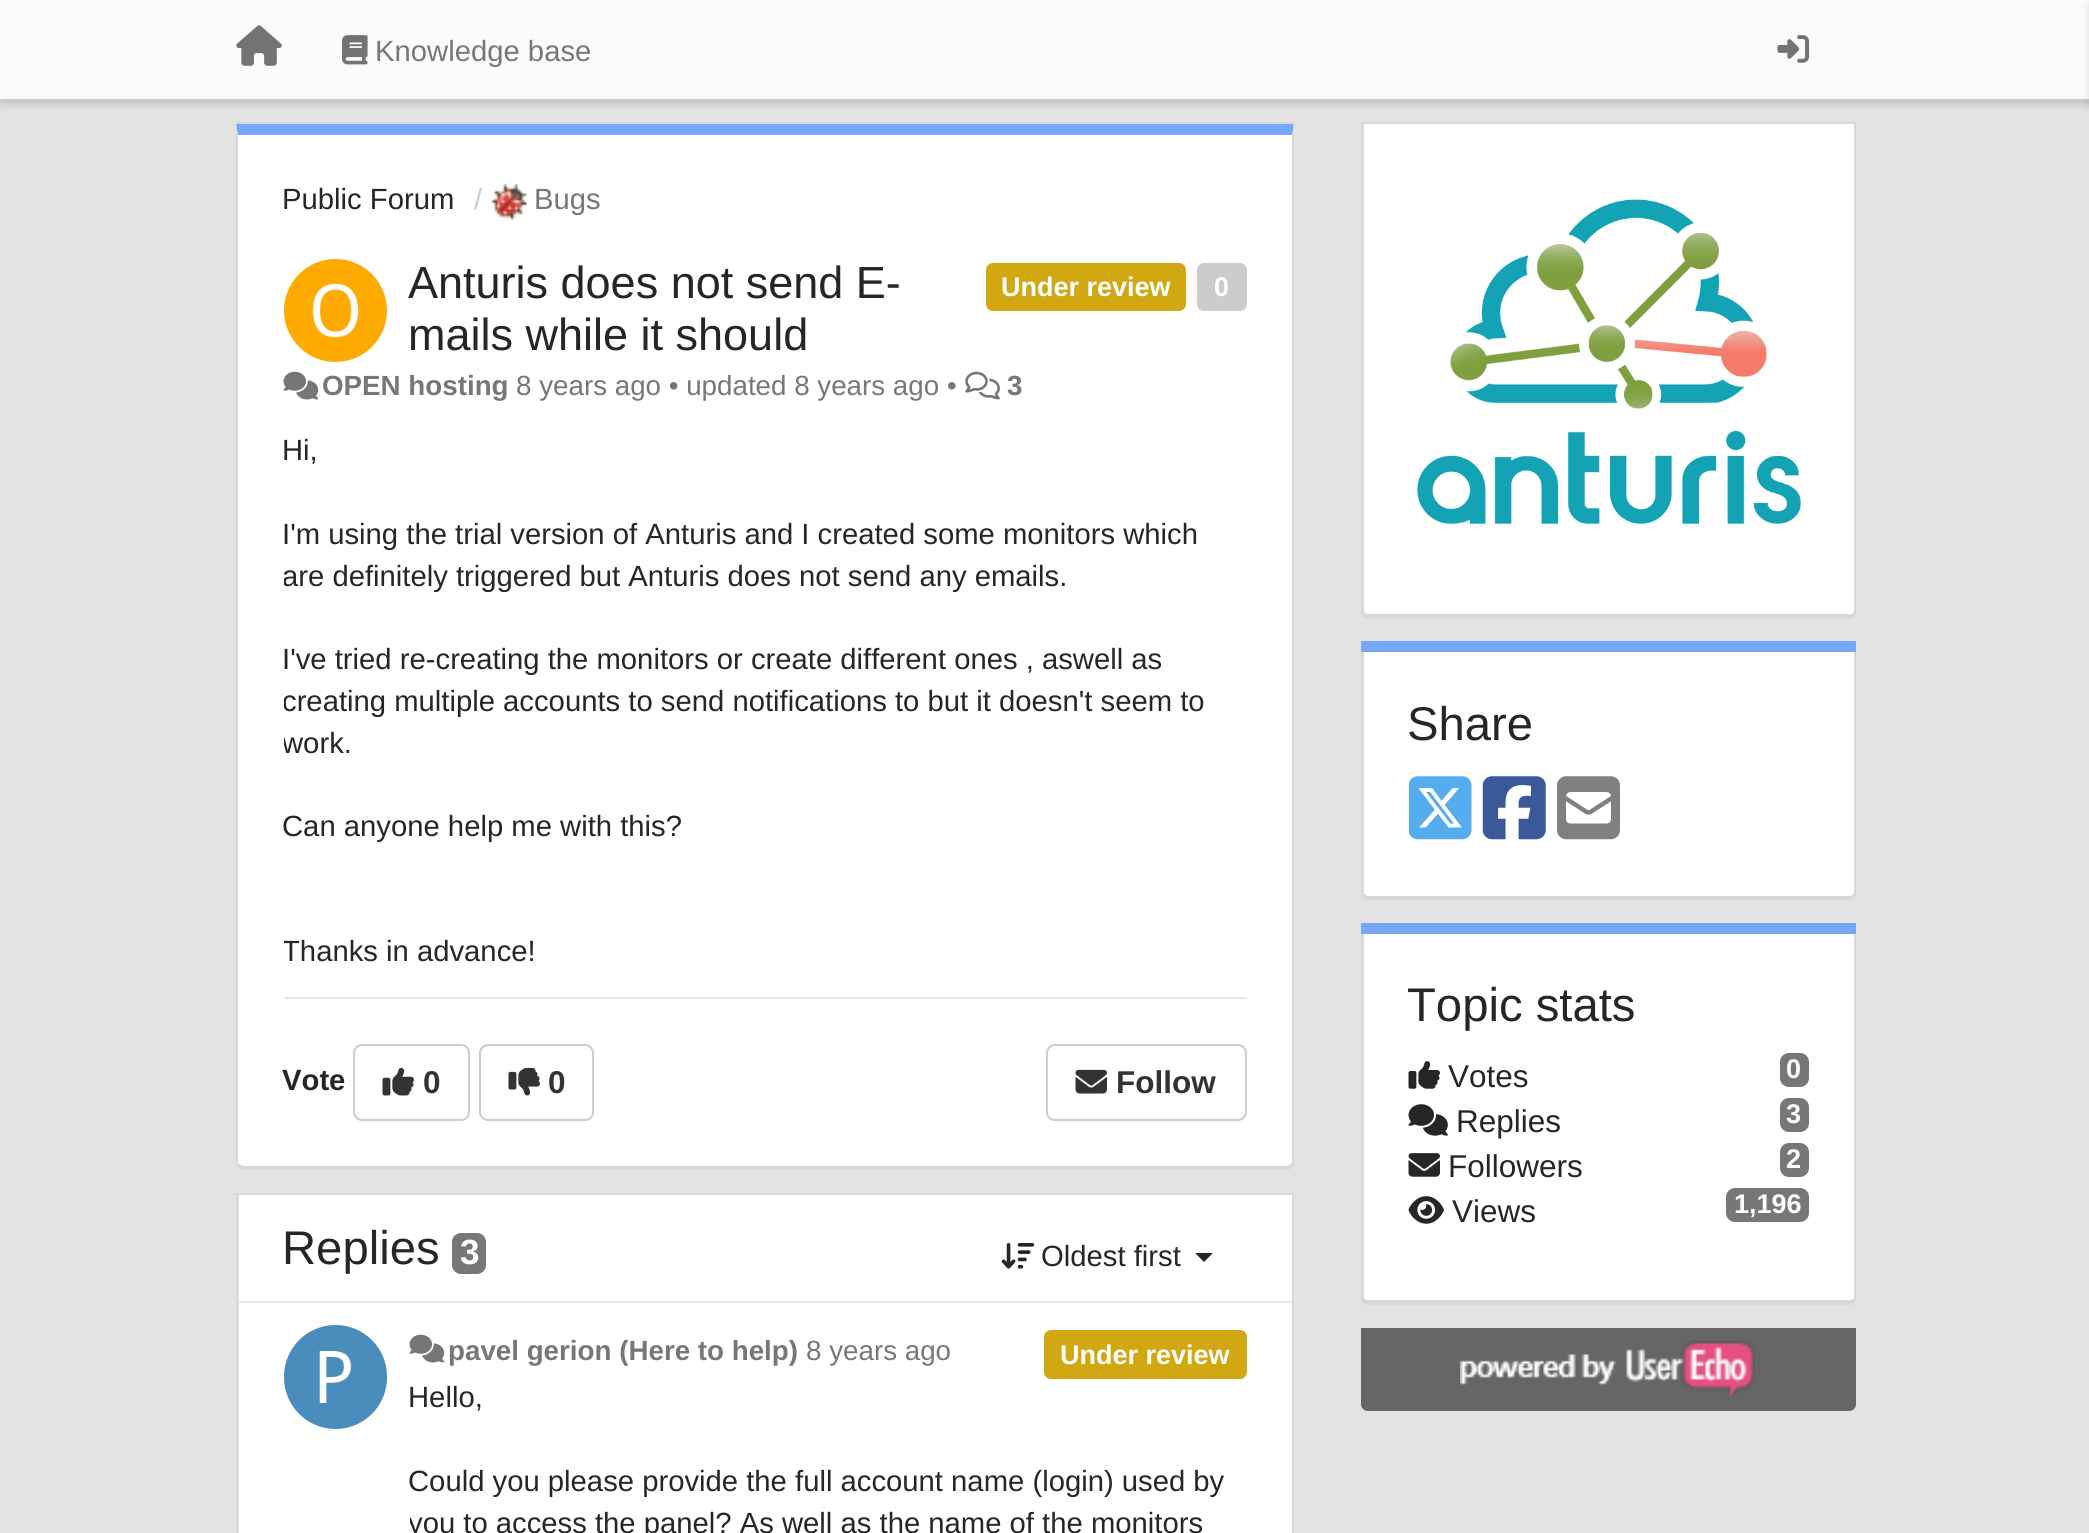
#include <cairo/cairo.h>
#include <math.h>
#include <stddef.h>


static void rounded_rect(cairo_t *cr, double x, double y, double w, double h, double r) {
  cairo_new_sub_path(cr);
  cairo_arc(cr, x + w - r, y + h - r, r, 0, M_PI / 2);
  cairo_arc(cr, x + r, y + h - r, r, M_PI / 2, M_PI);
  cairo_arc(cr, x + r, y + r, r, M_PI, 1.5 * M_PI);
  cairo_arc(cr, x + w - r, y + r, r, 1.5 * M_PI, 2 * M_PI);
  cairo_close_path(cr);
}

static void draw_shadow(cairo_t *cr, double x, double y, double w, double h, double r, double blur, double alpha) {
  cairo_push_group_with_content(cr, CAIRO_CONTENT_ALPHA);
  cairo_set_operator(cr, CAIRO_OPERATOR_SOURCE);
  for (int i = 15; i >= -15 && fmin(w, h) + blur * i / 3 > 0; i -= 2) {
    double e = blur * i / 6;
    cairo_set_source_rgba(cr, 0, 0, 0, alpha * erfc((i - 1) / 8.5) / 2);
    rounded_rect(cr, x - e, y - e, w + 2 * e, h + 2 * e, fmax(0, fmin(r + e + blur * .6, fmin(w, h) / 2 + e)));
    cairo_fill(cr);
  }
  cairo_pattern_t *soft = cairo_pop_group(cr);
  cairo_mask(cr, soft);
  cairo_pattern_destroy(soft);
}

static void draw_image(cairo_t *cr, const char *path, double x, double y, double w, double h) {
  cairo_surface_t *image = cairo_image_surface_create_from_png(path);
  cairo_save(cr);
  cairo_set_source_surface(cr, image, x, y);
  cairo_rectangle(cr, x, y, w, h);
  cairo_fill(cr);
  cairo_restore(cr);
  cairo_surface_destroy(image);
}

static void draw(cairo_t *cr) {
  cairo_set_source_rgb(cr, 227 / 255.0, 227 / 255.0, 227 / 255.0);
  cairo_paint(cr);
  cairo_set_source_rgb(cr, 0, 0, 0);
  draw_shadow(cr, 0, 5, 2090, 99, 0, 4.5, 0.15);
  cairo_set_source_rgb(cr, 251 / 255.0, 251 / 255.0, 251 / 255.0);
  cairo_rectangle(cr, 0, 0, 2089, 99);
  cairo_fill(cr);
  draw_image(cr, "images/1.png", 236, 25, 46, 41);
  draw_image(cr, "images/2.png", 342, 35, 26, 30);
  draw_image(cr, "images/3.png", 1777, 35, 32, 28);
  cairo_set_source_rgb(cr, 0, 0, 0);
  draw_shadow(cr, 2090, 5, 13, 99, 0, 4.5, 0.15);
  cairo_set_source_rgb(cr, 216 / 255.0, 216 / 255.0, 216 / 255.0);
  cairo_rectangle(cr, 236, 122, 1058, 2);
  cairo_fill(cr);
  cairo_set_source_rgb(cr, 1, 1, 1);
  cairo_new_path(cr);
  cairo_move_to(cr, 238, 135);
  cairo_line_to(cr, 1292, 135);
  cairo_line_to(cr, 1292, 1163);
  cairo_curve_to(cr, 1292, 1164, 1289, 1166, 1287, 1166);
  cairo_line_to(cr, 243, 1166);
  cairo_curve_to(cr, 241, 1166, 238, 1164, 238, 1163);
  cairo_close_path(cr);
  cairo_fill(cr);
  cairo_set_source_rgb(cr, 118 / 255.0, 167 / 255.0, 250 / 255.0);
  cairo_new_path(cr);
  cairo_move_to(cr, 1294, 124);
  cairo_line_to(cr, 236, 124);
  cairo_line_to(cr, 238, 135);
  cairo_line_to(cr, 1292, 135);
  cairo_close_path(cr);
  cairo_fill(cr);
  cairo_set_source_rgb(cr, 216 / 255.0, 216 / 255.0, 216 / 255.0);
  cairo_new_path(cr);
  cairo_move_to(cr, 1294, 1165);
  cairo_line_to(cr, 1292, 1167);
  cairo_line_to(cr, 1291, 1164);
  cairo_line_to(cr, 1292, 1163);
  cairo_line_to(cr, 1292, 135);
  cairo_line_to(cr, 1294, 124);
  cairo_close_path(cr);
  cairo_fill(cr);
  cairo_new_path(cr);
  cairo_move_to(cr, 243, 1170);
  cairo_line_to(cr, 1287, 1170);
  cairo_curve_to(cr, 1289, 1170, 1291, 1169, 1292, 1167);
  cairo_line_to(cr, 1291, 1164);
  cairo_line_to(cr, 1287, 1166);
  cairo_line_to(cr, 243, 1166);
  cairo_line_to(cr, 239, 1164);
  cairo_line_to(cr, 238, 1167);
  cairo_curve_to(cr, 239, 1169, 241, 1170, 243, 1170);
  cairo_close_path(cr);
  cairo_fill(cr);
  cairo_new_path(cr);
  cairo_move_to(cr, 238, 135);
  cairo_line_to(cr, 238, 1163);
  cairo_line_to(cr, 239, 1164);
  cairo_line_to(cr, 238, 1167);
  cairo_line_to(cr, 236, 1165);
  cairo_line_to(cr, 236, 124);
  cairo_close_path(cr);
  cairo_fill(cr);
  draw_image(cr, "images/4.png", 490, 184, 37, 37);
  cairo_set_source_rgb(cr, 1, 170 / 255.0, 0);
  cairo_arc(cr, 335.5, 310.5, 51.5, 0, 2 * M_PI);
  cairo_fill(cr);
  draw_image(cr, "images/5.png", 312, 283, 47, 55);
  cairo_set_source_rgb(cr, 209 / 255.0, 167 / 255.0, 18 / 255.0);
  rounded_rect(cr, 986, 263, 200, 48, 7);
  cairo_fill(cr);
  cairo_set_source_rgb(cr, 204 / 255.0, 204 / 255.0, 204 / 255.0);
  rounded_rect(cr, 1197, 263, 50, 48, 7);
  cairo_fill(cr);
  draw_image(cr, "images/6.png", 283, 371, 36, 29);
  draw_image(cr, "images/7.png", 965, 371, 35, 29);
  cairo_set_source_rgb(cr, 229 / 255.0, 229 / 255.0, 229 / 255.0);
  cairo_rectangle(cr, 284, 997, 963, 2);
  cairo_fill(cr);
  rounded_rect(cr, 354, 1045, 115, 75, 8);
  cairo_set_source_rgb(cr, 204 / 255.0, 204 / 255.0, 204 / 255.0);
  cairo_stroke(cr);
  draw_image(cr, "images/8.png", 382, 1067, 32, 29);
  rounded_rect(cr, 480, 1045, 113, 75, 8);
  cairo_stroke(cr);
  draw_image(cr, "images/9.png", 508, 1067, 32, 29);
  rounded_rect(cr, 1047, 1045, 199, 75, 8);
  cairo_stroke(cr);
  draw_image(cr, "images/10.png", 1075, 1069, 32, 25);
  cairo_set_source_rgb(cr, 216 / 255.0, 216 / 255.0, 216 / 255.0);
  cairo_rectangle(cr, 236, 1193, 1058, 2);
  cairo_fill(cr);
  cairo_set_source_rgb(cr, 1, 1, 1);
  cairo_rectangle(cr, 239, 1195, 1053, 338);
  cairo_fill(cr);
  cairo_set_source_rgb(cr, 216 / 255.0, 216 / 255.0, 216 / 255.0);
  cairo_set_fill_rule(cr, CAIRO_FILL_RULE_EVEN_ODD);
  cairo_new_path(cr);
  cairo_move_to(cr, 236, 1195);
  cairo_line_to(cr, 1294, 1195);
  cairo_line_to(cr, 1294, 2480);
  cairo_curve_to(cr, 1294, 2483, 1291, 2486, 1287, 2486);
  cairo_line_to(cr, 243, 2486);
  cairo_curve_to(cr, 239, 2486, 236, 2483, 236, 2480);
  cairo_close_path(cr);
  cairo_move_to(cr, 238, 1195);
  cairo_line_to(cr, 1292, 1195);
  cairo_line_to(cr, 1292, 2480);
  cairo_curve_to(cr, 1292, 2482, 1289, 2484, 1287, 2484);
  cairo_line_to(cr, 243, 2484);
  cairo_curve_to(cr, 241, 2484, 238, 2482, 238, 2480);
  cairo_close_path(cr);
  cairo_fill(cr);
  cairo_set_source_rgb(cr, 119 / 255.0, 119 / 255.0, 119 / 255.0);
  rounded_rect(cr, 452, 1233, 34, 41, 9);
  cairo_fill(cr);
  draw_image(cr, "images/11.png", 1001, 1243, 34, 26);
  cairo_set_source_rgb(cr, 38 / 255.0, 38 / 255.0, 38 / 255.0);
  cairo_set_fill_rule(cr, CAIRO_FILL_RULE_WINDING);
  cairo_new_path(cr);
  cairo_move_to(cr, 1195, 1253);
  cairo_line_to(cr, 1213, 1253);
  cairo_line_to(cr, 1204, 1262);
  cairo_close_path(cr);
  cairo_fill(cr);
  cairo_set_source_rgb(cr, 225 / 255.0, 232 / 255.0, 237 / 255.0);
  cairo_rectangle(cr, 239, 1301, 1053, 2);
  cairo_fill(cr);
  cairo_set_source_rgb(cr, 74 / 255.0, 141 / 255.0, 188 / 255.0);
  rounded_rect(cr, 284, 1325, 103, 104, 51.5);
  cairo_fill(cr);
  draw_image(cr, "images/12.png", 319, 1351, 33, 52);
  draw_image(cr, "images/6.png", 409, 1334, 36, 29);
  cairo_set_source_rgb(cr, 209 / 255.0, 167 / 255.0, 18 / 255.0);
  rounded_rect(cr, 1044, 1330, 203, 49, 7);
  cairo_fill(cr);
  cairo_set_source_rgb(cr, 216 / 255.0, 216 / 255.0, 216 / 255.0);
  cairo_rectangle(cr, 1361, 122, 495, 2);
  cairo_fill(cr);
  cairo_set_source_rgb(cr, 1, 1, 1);
  cairo_new_path(cr);
  cairo_move_to(cr, 1364, 124);
  cairo_line_to(cr, 1854, 124);
  cairo_line_to(cr, 1854, 612);
  cairo_curve_to(cr, 1854, 613, 1852, 614, 1850, 614);
  cairo_line_to(cr, 1368, 614);
  cairo_curve_to(cr, 1366, 614, 1364, 613, 1364, 612);
  cairo_close_path(cr);
  cairo_fill(cr);
  cairo_set_source_rgb(cr, 216 / 255.0, 216 / 255.0, 216 / 255.0);
  cairo_set_fill_rule(cr, CAIRO_FILL_RULE_EVEN_ODD);
  cairo_new_path(cr);
  cairo_move_to(cr, 1361, 124);
  cairo_line_to(cr, 1856, 124);
  cairo_line_to(cr, 1856, 612);
  cairo_curve_to(cr, 1856, 616, 1853, 619, 1850, 619);
  cairo_line_to(cr, 1368, 619);
  cairo_curve_to(cr, 1364, 619, 1361, 616, 1361, 612);
  cairo_close_path(cr);
  cairo_move_to(cr, 1364, 124);
  cairo_line_to(cr, 1854, 124);
  cairo_line_to(cr, 1854, 612);
  cairo_curve_to(cr, 1854, 613, 1852, 614, 1850, 614);
  cairo_line_to(cr, 1368, 614);
  cairo_curve_to(cr, 1366, 614, 1364, 613, 1364, 612);
  cairo_close_path(cr);
  cairo_fill(cr);
  draw_image(cr, "images/13.png", 1417, 199, 384, 325);
  cairo_set_source_rgb(cr, 118 / 255.0, 167 / 255.0, 250 / 255.0);
  cairo_rectangle(cr, 1361, 641, 495, 11);
  cairo_fill(cr);
  cairo_set_source_rgb(cr, 1, 1, 1);
  cairo_set_fill_rule(cr, CAIRO_FILL_RULE_WINDING);
  cairo_new_path(cr);
  cairo_move_to(cr, 1364, 652);
  cairo_line_to(cr, 1854, 652);
  cairo_line_to(cr, 1854, 893);
  cairo_curve_to(cr, 1854, 894, 1852, 896, 1850, 896);
  cairo_line_to(cr, 1368, 896);
  cairo_curve_to(cr, 1366, 896, 1364, 894, 1364, 893);
  cairo_close_path(cr);
  cairo_fill(cr);
  cairo_set_source_rgb(cr, 216 / 255.0, 216 / 255.0, 216 / 255.0);
  cairo_set_fill_rule(cr, CAIRO_FILL_RULE_EVEN_ODD);
  cairo_new_path(cr);
  cairo_move_to(cr, 1361, 652);
  cairo_line_to(cr, 1856, 652);
  cairo_line_to(cr, 1856, 893);
  cairo_curve_to(cr, 1856, 897, 1853, 900, 1850, 900);
  cairo_line_to(cr, 1368, 900);
  cairo_curve_to(cr, 1364, 900, 1361, 897, 1361, 893);
  cairo_close_path(cr);
  cairo_move_to(cr, 1364, 652);
  cairo_line_to(cr, 1854, 652);
  cairo_line_to(cr, 1854, 893);
  cairo_curve_to(cr, 1854, 894, 1852, 896, 1850, 896);
  cairo_line_to(cr, 1368, 896);
  cairo_curve_to(cr, 1366, 896, 1364, 894, 1364, 893);
  cairo_close_path(cr);
  cairo_fill(cr);
  draw_image(cr, "images/14.png", 1409, 776, 63, 64);
  draw_image(cr, "images/15.png", 1482, 776, 64, 64);
  draw_image(cr, "images/16.png", 1557, 776, 63, 64);
  cairo_set_source_rgb(cr, 118 / 255.0, 167 / 255.0, 250 / 255.0);
  cairo_rectangle(cr, 1361, 923, 495, 11);
  cairo_fill(cr);
  cairo_set_source_rgb(cr, 1, 1, 1);
  cairo_set_fill_rule(cr, CAIRO_FILL_RULE_WINDING);
  cairo_new_path(cr);
  cairo_move_to(cr, 1364, 934);
  cairo_line_to(cr, 1854, 934);
  cairo_line_to(cr, 1854, 1298);
  cairo_curve_to(cr, 1854, 1299, 1852, 1300, 1850, 1300);
  cairo_line_to(cr, 1368, 1300);
  cairo_curve_to(cr, 1366, 1300, 1364, 1299, 1364, 1298);
  cairo_close_path(cr);
  cairo_fill(cr);
  cairo_set_source_rgb(cr, 216 / 255.0, 216 / 255.0, 216 / 255.0);
  cairo_set_fill_rule(cr, CAIRO_FILL_RULE_EVEN_ODD);
  cairo_new_path(cr);
  cairo_move_to(cr, 1361, 934);
  cairo_line_to(cr, 1856, 934);
  cairo_line_to(cr, 1856, 1298);
  cairo_curve_to(cr, 1856, 1302, 1853, 1305, 1850, 1305);
  cairo_line_to(cr, 1368, 1305);
  cairo_curve_to(cr, 1364, 1305, 1361, 1302, 1361, 1298);
  cairo_close_path(cr);
  cairo_move_to(cr, 1364, 934);
  cairo_line_to(cr, 1854, 934);
  cairo_line_to(cr, 1854, 1298);
  cairo_curve_to(cr, 1854, 1299, 1852, 1300, 1850, 1300);
  cairo_line_to(cr, 1368, 1300);
  cairo_curve_to(cr, 1366, 1300, 1364, 1299, 1364, 1298);
  cairo_close_path(cr);
  cairo_fill(cr);
  draw_image(cr, "images/17.png", 1408, 1061, 32, 28);
  cairo_set_source_rgb(cr, 119 / 255.0, 119 / 255.0, 119 / 255.0);
  rounded_rect(cr, 1780, 1053, 29, 34, 9);
  cairo_fill(cr);
  draw_image(cr, "images/18.png", 1408, 1104, 40, 32);
  rounded_rect(cr, 1780, 1098, 29, 34, 9);
  cairo_fill(cr);
  draw_image(cr, "images/19.png", 1408, 1153, 32, 24);
  rounded_rect(cr, 1780, 1143, 29, 34, 9);
  cairo_fill(cr);
  draw_image(cr, "images/20.png", 1408, 1196, 36, 28);
  rounded_rect(cr, 1726, 1188, 83, 34, 9);
  cairo_fill(cr);
  cairo_set_source_rgb(cr, 102 / 255.0, 102 / 255.0, 102 / 255.0);
  cairo_new_path(cr);
  cairo_move_to(cr, 1361, 1328);
  cairo_line_to(cr, 1856, 1328);
  cairo_line_to(cr, 1856, 1404);
  cairo_curve_to(cr, 1856, 1408, 1853, 1411, 1849, 1411);
  cairo_line_to(cr, 1368, 1411);
  cairo_curve_to(cr, 1364, 1411, 1361, 1408, 1361, 1404);
  cairo_close_path(cr);
  cairo_fill(cr);
  draw_image(cr, "images/21.png", 1460, 1340, 295, 58);
  cairo_select_font_face(cr, "Liberation Sans", CAIRO_FONT_SLANT_NORMAL, CAIRO_FONT_WEIGHT_NORMAL);
  cairo_set_font_size(cr, 29.25);
  cairo_set_source_rgb(cr, 119 / 255.0, 119 / 255.0, 119 / 255.0);
  cairo_move_to(cr, 375, 61);
  cairo_show_text(cr, "Knowledge base");
  cairo_set_source_rgb(cr, 38 / 255.0, 38 / 255.0, 38 / 255.0);
  cairo_move_to(cr, 282, 209);
  cairo_show_text(cr, "Public Forum");
  cairo_set_source_rgb(cr, 204 / 255.0, 204 / 255.0, 204 / 255.0);
  cairo_move_to(cr, 474, 209);
  cairo_show_text(cr, "/");
  cairo_set_source_rgb(cr, 119 / 255.0, 119 / 255.0, 119 / 255.0);
  cairo_move_to(cr, 534, 209);
  cairo_show_text(cr, "Bugs");
  cairo_set_font_size(cr, 45);
  cairo_set_source_rgb(cr, 38 / 255.0, 38 / 255.0, 38 / 255.0);
  cairo_move_to(cr, 408, 298);
  cairo_show_text(cr, "Anturis does not send E-");
  cairo_move_to(cr, 408, 350);
  cairo_show_text(cr, "mails while it should");
  cairo_select_font_face(cr, "Liberation Sans", CAIRO_FONT_SLANT_NORMAL, CAIRO_FONT_WEIGHT_BOLD);
  cairo_set_font_size(cr, 27);
  cairo_set_source_rgb(cr, 1, 1, 1);
  cairo_move_to(cr, 1001, 296);
  cairo_show_text(cr, "Under review");
  cairo_move_to(cr, 1214, 296);
  cairo_show_text(cr, "0");
  cairo_set_font_size(cr, 27.75);
  cairo_set_source_rgb(cr, 119 / 255.0, 119 / 255.0, 119 / 255.0);
  cairo_move_to(cr, 322, 395);
  cairo_show_text(cr, "OPEN hosting");
  cairo_select_font_face(cr, "Liberation Sans", CAIRO_FONT_SLANT_NORMAL, CAIRO_FONT_WEIGHT_NORMAL);
  cairo_move_to(cr, 516, 395);
  cairo_show_text(cr, "8 years ago • updated 8 years ago •");
  cairo_select_font_face(cr, "Liberation Sans", CAIRO_FONT_SLANT_NORMAL, CAIRO_FONT_WEIGHT_BOLD);
  cairo_move_to(cr, 1007, 395);
  cairo_show_text(cr, "3");
  cairo_select_font_face(cr, "Liberation Sans", CAIRO_FONT_SLANT_NORMAL, CAIRO_FONT_WEIGHT_NORMAL);
  cairo_set_font_size(cr, 29.25);
  cairo_set_source_rgb(cr, 38 / 255.0, 38 / 255.0, 38 / 255.0);
  cairo_move_to(cr, 282, 460);
  cairo_show_text(cr, "Hi,");
  cairo_move_to(cr, 282, 544);
  cairo_show_text(cr, "I'm using the trial version of Anturis and I created some monitors which");
  cairo_save(cr);
  cairo_set_fill_rule(cr, CAIRO_FILL_RULE_WINDING);
  cairo_rectangle(cr, 284, 432, 963, 542);
  cairo_clip(cr);
  cairo_move_to(cr, 282, 586);
  cairo_show_text(cr, "are definitely triggered but Anturis does not send any emails.");
  cairo_restore(cr);
  cairo_move_to(cr, 282, 669);
  cairo_show_text(cr, "I've tried re-creating the monitors or create different ones , aswell as");
  cairo_save(cr);
  cairo_set_fill_rule(cr, CAIRO_FILL_RULE_WINDING);
  cairo_rectangle(cr, 284, 432, 963, 542);
  cairo_clip(cr);
  cairo_move_to(cr, 282, 711);
  cairo_show_text(cr, "creating multiple accounts to send notifications to but it doesn't seem to");
  cairo_move_to(cr, 282, 753);
  cairo_show_text(cr, "work.");
  cairo_restore(cr);
  cairo_move_to(cr, 282, 836);
  cairo_show_text(cr, "Can anyone help me with this?");
  cairo_save(cr);
  cairo_set_fill_rule(cr, CAIRO_FILL_RULE_WINDING);
  cairo_rectangle(cr, 284, 432, 963, 542);
  cairo_clip(cr);
  cairo_move_to(cr, 282, 961);
  cairo_show_text(cr, "Thanks in advance!");
  cairo_restore(cr);
  cairo_select_font_face(cr, "Liberation Sans", CAIRO_FONT_SLANT_NORMAL, CAIRO_FONT_WEIGHT_BOLD);
  cairo_move_to(cr, 282, 1090);
  cairo_show_text(cr, "Vote");
  cairo_set_font_size(cr, 31.5);
  cairo_set_source_rgb(cr, 51 / 255.0, 51 / 255.0, 51 / 255.0);
  cairo_move_to(cr, 423, 1093);
  cairo_show_text(cr, "0");
  cairo_move_to(cr, 548, 1093);
  cairo_show_text(cr, "0");
  cairo_move_to(cr, 1116, 1093);
  cairo_show_text(cr, "Follow");
  cairo_select_font_face(cr, "Liberation Sans", CAIRO_FONT_SLANT_NORMAL, CAIRO_FONT_WEIGHT_NORMAL);
  cairo_set_font_size(cr, 47.25);
  cairo_set_source_rgb(cr, 38 / 255.0, 38 / 255.0, 38 / 255.0);
  cairo_move_to(cr, 282, 1264);
  cairo_show_text(cr, "Replies");
  cairo_select_font_face(cr, "Liberation Sans", CAIRO_FONT_SLANT_NORMAL, CAIRO_FONT_WEIGHT_BOLD);
  cairo_set_font_size(cr, 35);
  cairo_set_source_rgb(cr, 1, 1, 1);
  cairo_move_to(cr, 460, 1264);
  cairo_show_text(cr, "3");
  cairo_select_font_face(cr, "Liberation Sans", CAIRO_FONT_SLANT_NORMAL, CAIRO_FONT_WEIGHT_NORMAL);
  cairo_set_font_size(cr, 29.25);
  cairo_set_source_rgb(cr, 38 / 255.0, 38 / 255.0, 38 / 255.0);
  cairo_move_to(cr, 1041, 1266);
  cairo_show_text(cr, "Oldest first");
  cairo_select_font_face(cr, "Liberation Sans", CAIRO_FONT_SLANT_NORMAL, CAIRO_FONT_WEIGHT_BOLD);
  cairo_set_font_size(cr, 27.75);
  cairo_set_source_rgb(cr, 119 / 255.0, 119 / 255.0, 119 / 255.0);
  cairo_move_to(cr, 448, 1360);
  cairo_show_text(cr, "pavel gerion (Here to help)");
  cairo_select_font_face(cr, "Liberation Sans", CAIRO_FONT_SLANT_NORMAL, CAIRO_FONT_WEIGHT_NORMAL);
  cairo_move_to(cr, 806, 1360);
  cairo_show_text(cr, "8 years ago");
  cairo_select_font_face(cr, "Liberation Sans", CAIRO_FONT_SLANT_NORMAL, CAIRO_FONT_WEIGHT_BOLD);
  cairo_set_font_size(cr, 27);
  cairo_set_source_rgb(cr, 1, 1, 1);
  cairo_move_to(cr, 1060, 1364);
  cairo_show_text(cr, "Under review");
  cairo_select_font_face(cr, "Liberation Sans", CAIRO_FONT_SLANT_NORMAL, CAIRO_FONT_WEIGHT_NORMAL);
  cairo_set_font_size(cr, 29.25);
  cairo_set_source_rgb(cr, 38 / 255.0, 38 / 255.0, 38 / 255.0);
  cairo_move_to(cr, 408, 1407);
  cairo_show_text(cr, "Hello,");
  cairo_move_to(cr, 408, 1491);
  cairo_show_text(cr, "Could you please provide the full account name (login) used by");
  cairo_save(cr);
  cairo_set_fill_rule(cr, CAIRO_FILL_RULE_WINDING);
  cairo_rectangle(cr, 410, 1377, 837, 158);
  cairo_clip(cr);
  cairo_move_to(cr, 408, 1533);
  cairo_show_text(cr, "you to access the panel? As well as the name of the monitors");
  cairo_restore(cr);
  cairo_set_font_size(cr, 47.25);
  cairo_move_to(cr, 1407, 740);
  cairo_show_text(cr, "Share");
  cairo_move_to(cr, 1407, 1021);
  cairo_show_text(cr, "Topic stats");
  cairo_set_font_size(cr, 31.5);
  cairo_move_to(cr, 1448, 1087);
  cairo_show_text(cr, "Votes");
  cairo_select_font_face(cr, "Liberation Sans", CAIRO_FONT_SLANT_NORMAL, CAIRO_FONT_WEIGHT_BOLD);
  cairo_set_font_size(cr, 27);
  cairo_set_source_rgb(cr, 1, 1, 1);
  cairo_move_to(cr, 1786, 1078);
  cairo_show_text(cr, "0");
  cairo_select_font_face(cr, "Liberation Sans", CAIRO_FONT_SLANT_NORMAL, CAIRO_FONT_WEIGHT_NORMAL);
  cairo_set_font_size(cr, 31.5);
  cairo_set_source_rgb(cr, 38 / 255.0, 38 / 255.0, 38 / 255.0);
  cairo_move_to(cr, 1456, 1132);
  cairo_show_text(cr, "Replies");
  cairo_select_font_face(cr, "Liberation Sans", CAIRO_FONT_SLANT_NORMAL, CAIRO_FONT_WEIGHT_BOLD);
  cairo_set_font_size(cr, 27);
  cairo_set_source_rgb(cr, 1, 1, 1);
  cairo_move_to(cr, 1786, 1123);
  cairo_show_text(cr, "3");
  cairo_select_font_face(cr, "Liberation Sans", CAIRO_FONT_SLANT_NORMAL, CAIRO_FONT_WEIGHT_NORMAL);
  cairo_set_font_size(cr, 31.5);
  cairo_set_source_rgb(cr, 38 / 255.0, 38 / 255.0, 38 / 255.0);
  cairo_move_to(cr, 1448, 1177);
  cairo_show_text(cr, "Followers");
  cairo_select_font_face(cr, "Liberation Sans", CAIRO_FONT_SLANT_NORMAL, CAIRO_FONT_WEIGHT_BOLD);
  cairo_set_font_size(cr, 27);
  cairo_set_source_rgb(cr, 1, 1, 1);
  cairo_move_to(cr, 1786, 1168);
  cairo_show_text(cr, "2");
  cairo_select_font_face(cr, "Liberation Sans", CAIRO_FONT_SLANT_NORMAL, CAIRO_FONT_WEIGHT_NORMAL);
  cairo_set_font_size(cr, 31.5);
  cairo_set_source_rgb(cr, 38 / 255.0, 38 / 255.0, 38 / 255.0);
  cairo_move_to(cr, 1452, 1222);
  cairo_show_text(cr, "Views");
  cairo_select_font_face(cr, "Liberation Sans", CAIRO_FONT_SLANT_NORMAL, CAIRO_FONT_WEIGHT_BOLD);
  cairo_set_font_size(cr, 27);
  cairo_set_source_rgb(cr, 1, 1, 1);
  cairo_move_to(cr, 1734, 1213);
  cairo_show_text(cr, "1,196");
}

int main(void) {
  cairo_surface_t *surface = cairo_image_surface_create(CAIRO_FORMAT_RGB24, 2089, 1533);
  cairo_t *cr = cairo_create(surface);
  cairo_font_options_t *options = cairo_font_options_create();
  cairo_font_options_set_hint_metrics(options, CAIRO_HINT_METRICS_OFF);
  cairo_font_options_set_hint_style(options, CAIRO_HINT_STYLE_NONE);
  cairo_set_font_options(cr, options);
  cairo_set_miter_limit(cr, 4);
  draw(cr);
  cairo_surface_write_to_png(surface, "out.png");
  cairo_font_options_destroy(options);
  cairo_destroy(cr);
  cairo_surface_destroy(surface);
  return 0;
}
